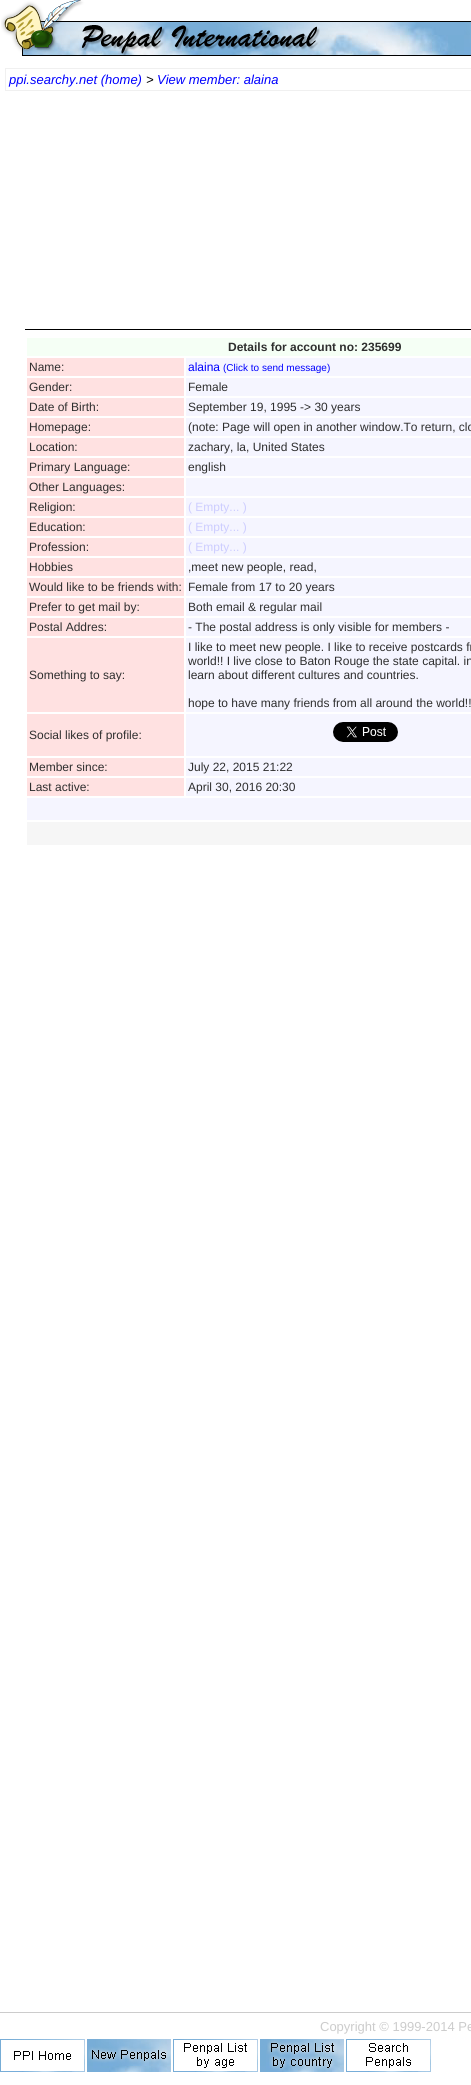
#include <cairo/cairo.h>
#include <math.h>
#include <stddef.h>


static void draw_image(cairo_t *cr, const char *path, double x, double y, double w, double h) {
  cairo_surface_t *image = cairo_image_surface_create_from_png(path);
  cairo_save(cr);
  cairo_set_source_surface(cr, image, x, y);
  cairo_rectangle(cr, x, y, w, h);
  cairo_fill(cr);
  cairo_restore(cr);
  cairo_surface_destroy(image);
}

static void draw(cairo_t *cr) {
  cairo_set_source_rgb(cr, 1, 1, 1);
  cairo_paint(cr);
  draw_image(cr, "images/1.png", 1, 0, 470, 56);
  cairo_rectangle(cr, 5.5, 68.5, 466, 22);
  cairo_set_source_rgb(cr, 240 / 255.0, 240 / 255.0, 240 / 255.0);
  cairo_set_line_width(cr, 1);
  cairo_stroke(cr);
  cairo_set_source_rgb(cr, 0, 0, 0);
  cairo_rectangle(cr, 25, 329, 446, 1);
  cairo_fill(cr);
  cairo_set_source_rgb(cr, 245 / 255.0, 1, 245 / 255.0);
  cairo_rectangle(cr, 27, 338, 444, 18);
  cairo_fill(cr);
  cairo_set_source_rgb(cr, 1, 225 / 255.0, 225 / 255.0);
  cairo_rectangle(cr, 27, 358, 157, 18);
  cairo_fill(cr);
  cairo_set_source_rgb(cr, 245 / 255.0, 245 / 255.0, 1);
  cairo_rectangle(cr, 186, 358, 285, 18);
  cairo_fill(cr);
  cairo_set_source_rgb(cr, 1, 225 / 255.0, 225 / 255.0);
  cairo_rectangle(cr, 27, 378, 157, 18);
  cairo_fill(cr);
  cairo_set_source_rgb(cr, 245 / 255.0, 245 / 255.0, 1);
  cairo_rectangle(cr, 186, 378, 285, 18);
  cairo_fill(cr);
  cairo_set_source_rgb(cr, 1, 225 / 255.0, 225 / 255.0);
  cairo_rectangle(cr, 27, 398, 157, 18);
  cairo_fill(cr);
  cairo_set_source_rgb(cr, 245 / 255.0, 245 / 255.0, 1);
  cairo_rectangle(cr, 186, 398, 285, 18);
  cairo_fill(cr);
  cairo_set_source_rgb(cr, 1, 225 / 255.0, 225 / 255.0);
  cairo_rectangle(cr, 27, 418, 157, 18);
  cairo_fill(cr);
  cairo_set_source_rgb(cr, 245 / 255.0, 245 / 255.0, 1);
  cairo_rectangle(cr, 186, 418, 285, 18);
  cairo_fill(cr);
  cairo_set_source_rgb(cr, 1, 225 / 255.0, 225 / 255.0);
  cairo_rectangle(cr, 27, 438, 157, 18);
  cairo_fill(cr);
  cairo_set_source_rgb(cr, 245 / 255.0, 245 / 255.0, 1);
  cairo_rectangle(cr, 186, 438, 285, 18);
  cairo_fill(cr);
  cairo_set_source_rgb(cr, 1, 225 / 255.0, 225 / 255.0);
  cairo_rectangle(cr, 27, 458, 157, 18);
  cairo_fill(cr);
  cairo_set_source_rgb(cr, 245 / 255.0, 245 / 255.0, 1);
  cairo_rectangle(cr, 186, 458, 285, 18);
  cairo_fill(cr);
  cairo_set_source_rgb(cr, 1, 225 / 255.0, 225 / 255.0);
  cairo_rectangle(cr, 27, 478, 157, 18);
  cairo_fill(cr);
  cairo_set_source_rgb(cr, 245 / 255.0, 245 / 255.0, 1);
  cairo_rectangle(cr, 186, 478, 285, 18);
  cairo_fill(cr);
  cairo_set_source_rgb(cr, 1, 225 / 255.0, 225 / 255.0);
  cairo_rectangle(cr, 27, 498, 157, 18);
  cairo_fill(cr);
  cairo_set_source_rgb(cr, 245 / 255.0, 245 / 255.0, 1);
  cairo_rectangle(cr, 186, 498, 285, 18);
  cairo_fill(cr);
  cairo_set_source_rgb(cr, 1, 225 / 255.0, 225 / 255.0);
  cairo_rectangle(cr, 27, 518, 157, 18);
  cairo_fill(cr);
  cairo_set_source_rgb(cr, 245 / 255.0, 245 / 255.0, 1);
  cairo_rectangle(cr, 186, 518, 285, 18);
  cairo_fill(cr);
  cairo_set_source_rgb(cr, 1, 225 / 255.0, 225 / 255.0);
  cairo_rectangle(cr, 27, 538, 157, 18);
  cairo_fill(cr);
  cairo_set_source_rgb(cr, 245 / 255.0, 245 / 255.0, 1);
  cairo_rectangle(cr, 186, 538, 285, 18);
  cairo_fill(cr);
  cairo_set_source_rgb(cr, 1, 225 / 255.0, 225 / 255.0);
  cairo_rectangle(cr, 27, 558, 157, 18);
  cairo_fill(cr);
  cairo_set_source_rgb(cr, 245 / 255.0, 245 / 255.0, 1);
  cairo_rectangle(cr, 186, 558, 285, 18);
  cairo_fill(cr);
  cairo_set_source_rgb(cr, 1, 225 / 255.0, 225 / 255.0);
  cairo_rectangle(cr, 27, 578, 157, 18);
  cairo_fill(cr);
  cairo_set_source_rgb(cr, 245 / 255.0, 245 / 255.0, 1);
  cairo_rectangle(cr, 186, 578, 285, 18);
  cairo_fill(cr);
  cairo_set_source_rgb(cr, 1, 225 / 255.0, 225 / 255.0);
  cairo_rectangle(cr, 27, 598, 157, 18);
  cairo_fill(cr);
  cairo_set_source_rgb(cr, 245 / 255.0, 245 / 255.0, 1);
  cairo_rectangle(cr, 186, 598, 285, 18);
  cairo_fill(cr);
  cairo_set_source_rgb(cr, 1, 225 / 255.0, 225 / 255.0);
  cairo_rectangle(cr, 27, 618, 157, 18);
  cairo_fill(cr);
  cairo_set_source_rgb(cr, 245 / 255.0, 245 / 255.0, 1);
  cairo_rectangle(cr, 186, 618, 285, 18);
  cairo_fill(cr);
  cairo_set_source_rgb(cr, 1, 225 / 255.0, 225 / 255.0);
  cairo_rectangle(cr, 27, 638, 157, 74);
  cairo_fill(cr);
  cairo_set_source_rgb(cr, 245 / 255.0, 245 / 255.0, 1);
  cairo_rectangle(cr, 186, 638, 285, 74);
  cairo_fill(cr);
  cairo_set_source_rgb(cr, 1, 225 / 255.0, 225 / 255.0);
  cairo_rectangle(cr, 27, 714, 157, 42);
  cairo_fill(cr);
  cairo_set_source_rgb(cr, 245 / 255.0, 245 / 255.0, 1);
  cairo_rectangle(cr, 186, 714, 285, 42);
  cairo_fill(cr);
  draw_image(cr, "images/2.png", 333, 722, 65, 20);
  cairo_set_source_rgb(cr, 1, 225 / 255.0, 225 / 255.0);
  cairo_rectangle(cr, 27, 758, 157, 18);
  cairo_fill(cr);
  cairo_set_source_rgb(cr, 245 / 255.0, 245 / 255.0, 1);
  cairo_rectangle(cr, 186, 758, 285, 18);
  cairo_fill(cr);
  cairo_set_source_rgb(cr, 1, 225 / 255.0, 225 / 255.0);
  cairo_rectangle(cr, 27, 778, 157, 18);
  cairo_fill(cr);
  cairo_set_source_rgb(cr, 245 / 255.0, 245 / 255.0, 1);
  cairo_rectangle(cr, 186, 778, 285, 18);
  cairo_fill(cr);
  cairo_rectangle(cr, 27, 798, 444, 22);
  cairo_fill(cr);
  cairo_set_source_rgb(cr, 246 / 255.0, 246 / 255.0, 246 / 255.0);
  cairo_rectangle(cr, 27, 822, 444, 23);
  cairo_fill(cr);
  cairo_set_source_rgb(cr, 204 / 255.0, 204 / 255.0, 204 / 255.0);
  cairo_rectangle(cr, 0, 2012, 471, 1);
  cairo_fill(cr);
  draw_image(cr, "images/3.png", 0, 2039, 85, 33);
  draw_image(cr, "images/4.png", 87, 2039, 84, 33);
  draw_image(cr, "images/5.png", 173, 2039, 85, 33);
  draw_image(cr, "images/6.png", 260, 2039, 84, 33);
  draw_image(cr, "images/7.png", 346, 2039, 85, 33);
  cairo_select_font_face(cr, "Liberation Sans", CAIRO_FONT_SLANT_ITALIC, CAIRO_FONT_WEIGHT_NORMAL);
  cairo_set_font_size(cr, 13);
  cairo_set_source_rgb(cr, 0, 0, 1);
  cairo_move_to(cr, 9, 84);
  cairo_show_text(cr, "ppi.searchy.net (home)");
  cairo_set_source_rgb(cr, 0, 0, 0);
  cairo_move_to(cr, 146, 84);
  cairo_show_text(cr, ">");
  cairo_set_source_rgb(cr, 0, 0, 1);
  cairo_move_to(cr, 157, 84);
  cairo_show_text(cr, "View member: alaina");
  cairo_select_font_face(cr, "Liberation Sans", CAIRO_FONT_SLANT_NORMAL, CAIRO_FONT_WEIGHT_BOLD);
  cairo_set_font_size(cr, 12);
  cairo_set_source_rgb(cr, 46 / 255.0, 46 / 255.0, 46 / 255.0);
  cairo_move_to(cr, 228, 351);
  cairo_show_text(cr, "Details for account no: 235699");
  cairo_select_font_face(cr, "Liberation Sans", CAIRO_FONT_SLANT_NORMAL, CAIRO_FONT_WEIGHT_NORMAL);
  cairo_move_to(cr, 29, 371);
  cairo_show_text(cr, "Name:");
  cairo_set_source_rgb(cr, 0, 0, 1);
  cairo_move_to(cr, 188, 371);
  cairo_show_text(cr, "alaina");
  cairo_set_font_size(cr, 10);
  cairo_move_to(cr, 223, 371);
  cairo_show_text(cr, "(Click to send message)");
  cairo_set_font_size(cr, 12);
  cairo_set_source_rgb(cr, 46 / 255.0, 46 / 255.0, 46 / 255.0);
  cairo_move_to(cr, 29, 391);
  cairo_show_text(cr, "Gender:");
  cairo_move_to(cr, 188, 391);
  cairo_show_text(cr, "Female");
  cairo_move_to(cr, 29, 411);
  cairo_show_text(cr, "Date of Birth:");
  cairo_move_to(cr, 188, 411);
  cairo_show_text(cr, "September 19, 1995 -> 30 years");
  cairo_move_to(cr, 29, 431);
  cairo_show_text(cr, "Homepage:");
  cairo_move_to(cr, 188, 431);
  cairo_show_text(cr, "(note: Page will open in another window.To return, clo");
  cairo_move_to(cr, 29, 451);
  cairo_show_text(cr, "Location:");
  cairo_move_to(cr, 188, 451);
  cairo_show_text(cr, "zachary, la, United States");
  cairo_move_to(cr, 29, 471);
  cairo_show_text(cr, "Primary Language:");
  cairo_move_to(cr, 188, 471);
  cairo_show_text(cr, "english");
  cairo_move_to(cr, 29, 491);
  cairo_show_text(cr, "Other Languages:");
  cairo_move_to(cr, 29, 511);
  cairo_show_text(cr, "Religion:");
  cairo_set_source_rgb(cr, 205 / 255.0, 205 / 255.0, 1);
  cairo_move_to(cr, 188, 511);
  cairo_show_text(cr, "( Empty... )");
  cairo_set_source_rgb(cr, 46 / 255.0, 46 / 255.0, 46 / 255.0);
  cairo_move_to(cr, 29, 531);
  cairo_show_text(cr, "Education:");
  cairo_set_source_rgb(cr, 205 / 255.0, 205 / 255.0, 1);
  cairo_move_to(cr, 188, 531);
  cairo_show_text(cr, "( Empty... )");
  cairo_set_source_rgb(cr, 46 / 255.0, 46 / 255.0, 46 / 255.0);
  cairo_move_to(cr, 29, 551);
  cairo_show_text(cr, "Profession:");
  cairo_set_source_rgb(cr, 205 / 255.0, 205 / 255.0, 1);
  cairo_move_to(cr, 188, 551);
  cairo_show_text(cr, "( Empty... )");
  cairo_set_source_rgb(cr, 46 / 255.0, 46 / 255.0, 46 / 255.0);
  cairo_move_to(cr, 29, 571);
  cairo_show_text(cr, "Hobbies");
  cairo_move_to(cr, 188, 571);
  cairo_show_text(cr, ",meet new people, read,");
  cairo_move_to(cr, 29, 591);
  cairo_show_text(cr, "Would like to be friends with:");
  cairo_move_to(cr, 188, 591);
  cairo_show_text(cr, "Female from 17 to 20 years");
  cairo_move_to(cr, 29, 611);
  cairo_show_text(cr, "Prefer to get mail by:");
  cairo_move_to(cr, 188, 611);
  cairo_show_text(cr, "Both email & regular mail");
  cairo_move_to(cr, 29, 631);
  cairo_show_text(cr, "Postal Addres:");
  cairo_move_to(cr, 188, 631);
  cairo_show_text(cr, "- The postal address is only visible for members -");
  cairo_move_to(cr, 29, 679);
  cairo_show_text(cr, "Something to say:");
  cairo_move_to(cr, 188, 651);
  cairo_show_text(cr, "I like to meet new people. I like to receive postcards fr");
  cairo_move_to(cr, 188, 665);
  cairo_show_text(cr, "world!! I live close to Baton Rouge the state capital. in");
  cairo_move_to(cr, 188, 679);
  cairo_show_text(cr, "learn about different cultures and countries.");
  cairo_move_to(cr, 188, 707);
  cairo_show_text(cr, "hope to have many friends from all around the world!!");
  cairo_move_to(cr, 29, 739);
  cairo_show_text(cr, "Social likes of profile:");
  cairo_move_to(cr, 29, 771);
  cairo_show_text(cr, "Member since:");
  cairo_move_to(cr, 188, 771);
  cairo_show_text(cr, "July 22, 2015 21:22");
  cairo_move_to(cr, 29, 791);
  cairo_show_text(cr, "Last active:");
  cairo_move_to(cr, 188, 791);
  cairo_show_text(cr, "April 30, 2016 20:30");
  cairo_set_font_size(cr, 13);
  cairo_set_source_rgb(cr, 204 / 255.0, 204 / 255.0, 204 / 255.0);
  cairo_move_to(cr, 320, 2031);
  cairo_show_text(cr, "Copyright © 1999-2014 Pe");
}

int main(void) {
  cairo_surface_t *surface = cairo_image_surface_create(CAIRO_FORMAT_RGB24, 471, 2085);
  cairo_t *cr = cairo_create(surface);
  cairo_font_options_t *options = cairo_font_options_create();
  cairo_font_options_set_hint_metrics(options, CAIRO_HINT_METRICS_OFF);
  cairo_font_options_set_hint_style(options, CAIRO_HINT_STYLE_NONE);
  cairo_set_font_options(cr, options);
  cairo_set_miter_limit(cr, 4);
  draw(cr);
  cairo_surface_write_to_png(surface, "out.png");
  cairo_font_options_destroy(options);
  cairo_destroy(cr);
  cairo_surface_destroy(surface);
  return 0;
}
